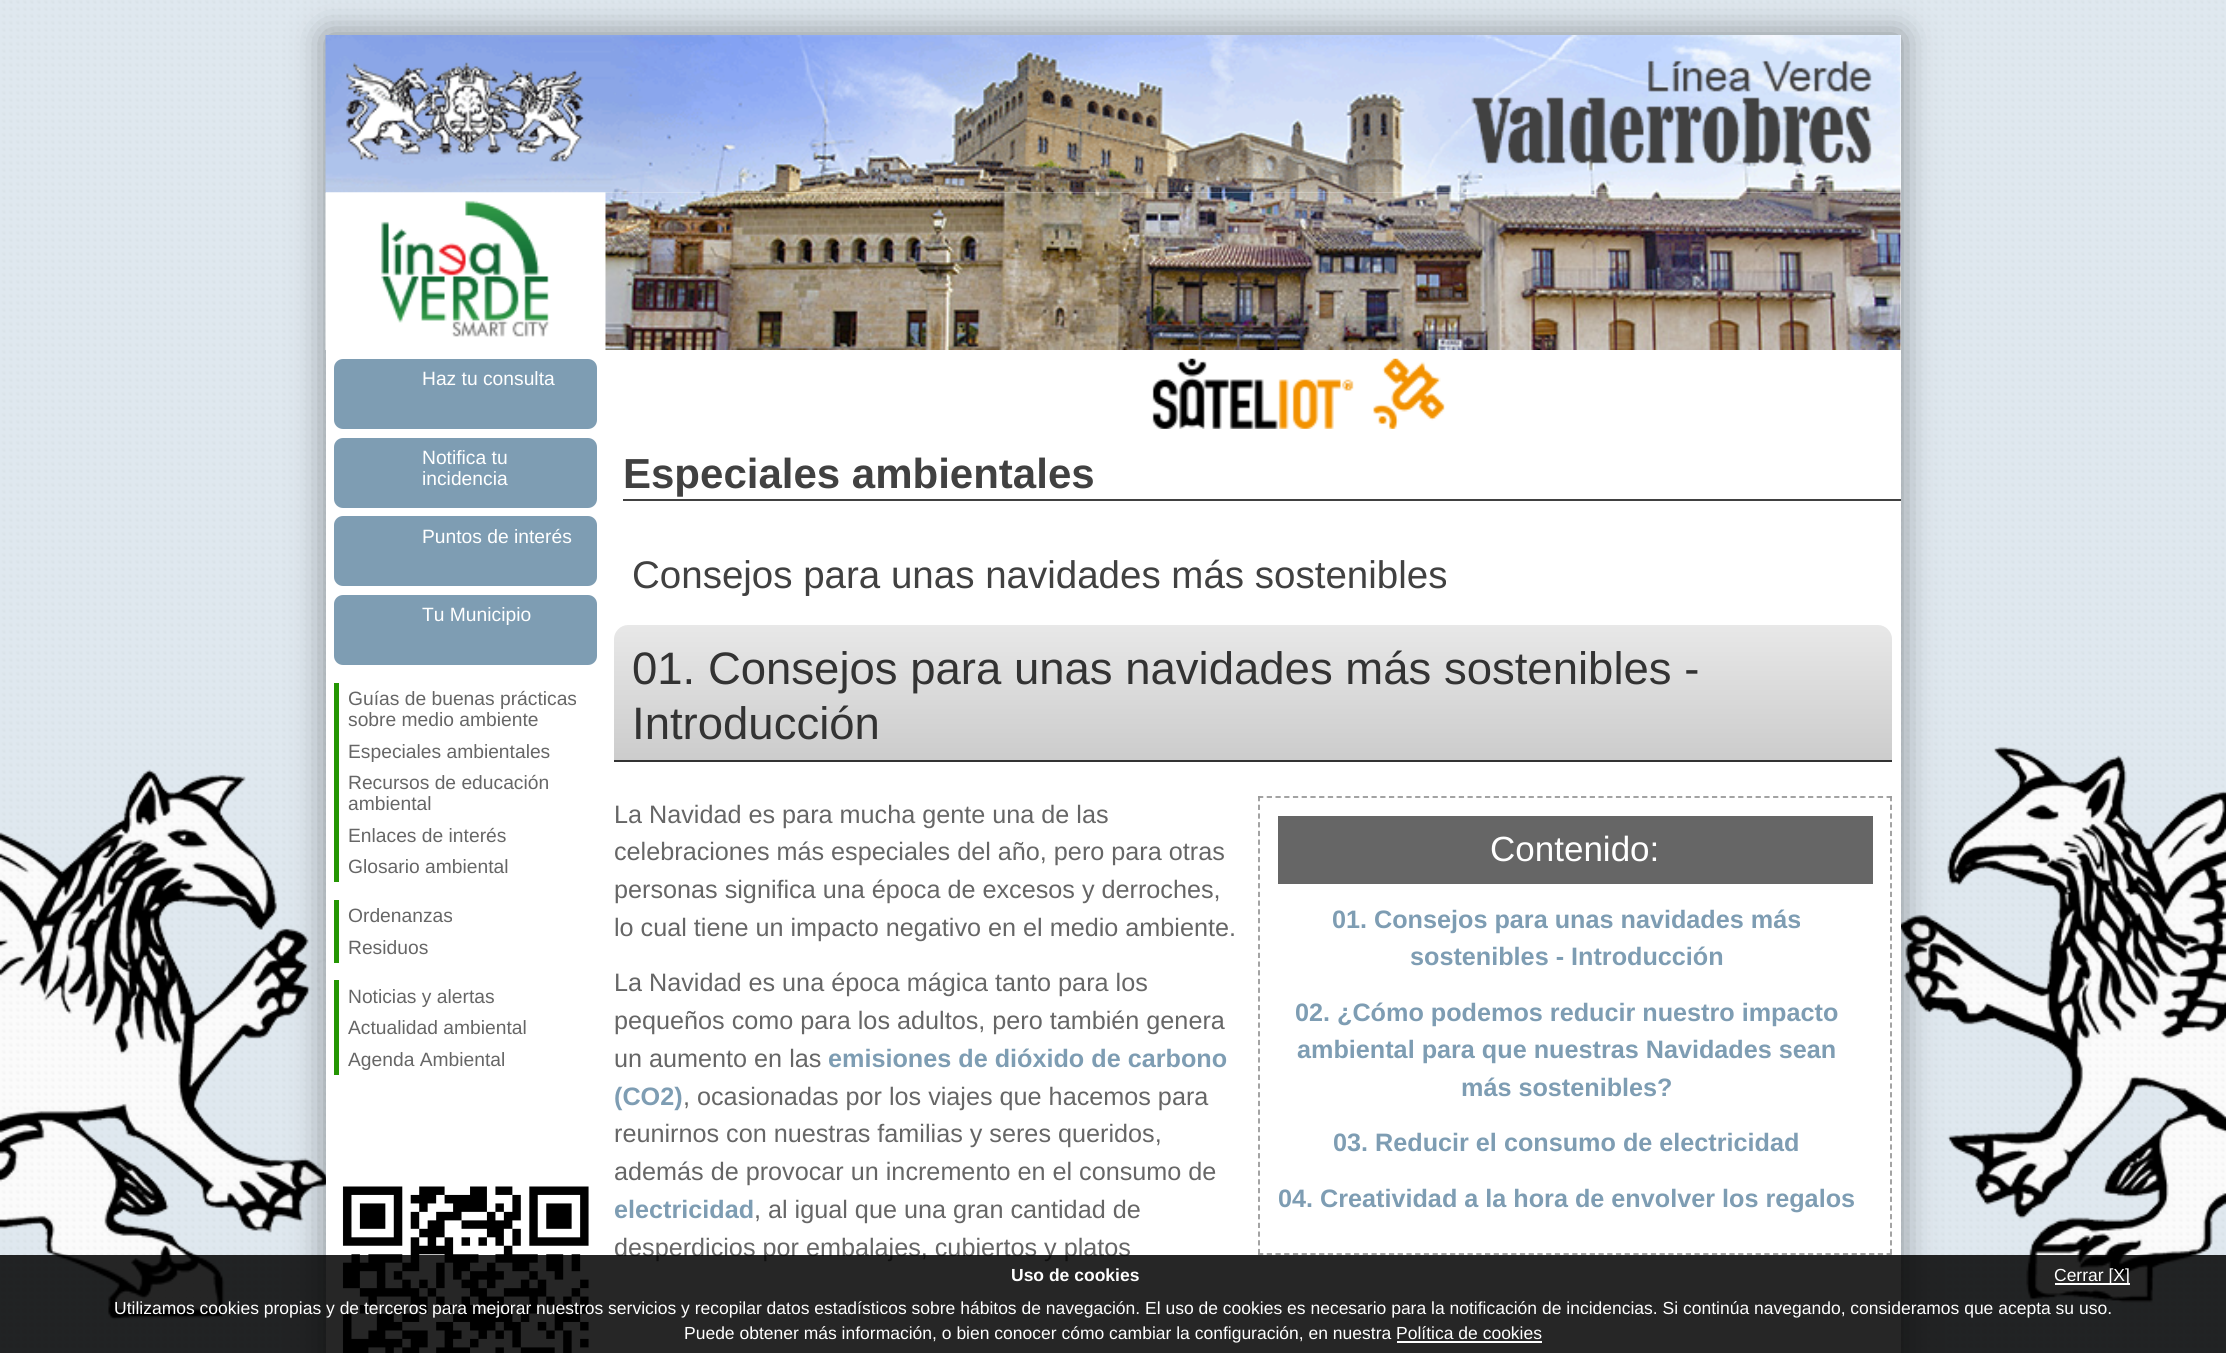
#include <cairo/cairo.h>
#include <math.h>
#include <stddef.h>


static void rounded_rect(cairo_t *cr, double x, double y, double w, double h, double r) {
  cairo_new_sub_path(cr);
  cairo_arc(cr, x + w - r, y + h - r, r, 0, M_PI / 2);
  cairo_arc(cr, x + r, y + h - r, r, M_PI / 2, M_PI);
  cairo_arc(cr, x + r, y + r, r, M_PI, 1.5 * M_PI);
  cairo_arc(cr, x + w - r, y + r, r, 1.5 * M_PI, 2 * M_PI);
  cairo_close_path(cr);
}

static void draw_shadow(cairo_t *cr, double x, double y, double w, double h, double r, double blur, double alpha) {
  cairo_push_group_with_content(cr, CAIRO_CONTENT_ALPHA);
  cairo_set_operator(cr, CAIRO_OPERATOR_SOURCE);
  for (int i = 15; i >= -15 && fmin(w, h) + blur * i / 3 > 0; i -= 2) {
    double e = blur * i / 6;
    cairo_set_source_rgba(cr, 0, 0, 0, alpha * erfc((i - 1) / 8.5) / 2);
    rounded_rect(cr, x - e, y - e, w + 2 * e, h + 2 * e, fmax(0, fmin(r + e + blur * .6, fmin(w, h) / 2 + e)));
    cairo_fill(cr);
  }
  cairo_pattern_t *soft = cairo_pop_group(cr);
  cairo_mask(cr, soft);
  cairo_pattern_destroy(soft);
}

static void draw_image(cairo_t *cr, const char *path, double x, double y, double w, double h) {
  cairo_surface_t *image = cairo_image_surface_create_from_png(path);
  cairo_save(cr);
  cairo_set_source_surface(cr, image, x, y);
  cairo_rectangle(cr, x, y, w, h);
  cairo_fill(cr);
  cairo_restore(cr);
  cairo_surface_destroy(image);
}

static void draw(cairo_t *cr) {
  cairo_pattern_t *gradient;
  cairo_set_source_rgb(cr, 227 / 255.0, 236 / 255.0, 243 / 255.0);
  cairo_paint(cr);
  draw_image(cr, "images/1.png", 0, 0, 2226, 1353);
  cairo_set_source_rgb(cr, 0, 0, 0);
  draw_shadow(cr, 326, 35, 1575, 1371, 0, 17.5, 0.4);
  cairo_set_source_rgb(cr, 1, 1, 1);
  cairo_rectangle(cr, 326, 35, 1575, 1318);
  cairo_fill(cr);
  draw_image(cr, "images/2.png", 325, 35, 1576, 158);
  draw_image(cr, "images/3.png", 325, 192, 281, 158);
  draw_image(cr, "images/4.png", 605, 192, 1296, 158);
  draw_image(cr, "images/5.png", 1152, 358, 293, 71);
  cairo_set_source_rgb(cr, 126 / 255.0, 157 / 255.0, 179 / 255.0);
  rounded_rect(cr, 334, 359, 263, 70, 9);
  cairo_fill(cr);
  rounded_rect(cr, 334, 438, 263, 70, 9);
  cairo_fill(cr);
  rounded_rect(cr, 334, 516, 263, 70, 9);
  cairo_fill(cr);
  rounded_rect(cr, 334, 595, 263, 70, 9);
  cairo_fill(cr);
  cairo_set_source_rgb(cr, 37 / 255.0, 150 / 255.0, 3 / 255.0);
  cairo_rectangle(cr, 334, 683, 5, 199);
  cairo_fill(cr);
  cairo_rectangle(cr, 334, 900, 5, 63);
  cairo_fill(cr);
  cairo_rectangle(cr, 334, 980, 5, 95);
  cairo_fill(cr);
  draw_image(cr, "images/6.png", 342, 1186, 247, 167);
  cairo_set_source_rgb(cr, 65 / 255.0, 65 / 255.0, 65 / 255.0);
  cairo_rectangle(cr, 623, 499, 1278, 2);
  cairo_fill(cr);
  gradient = cairo_pattern_create_linear(1253, 625, 1253, 760);
  cairo_pattern_add_color_stop_rgba(gradient, 0, 232 / 255.0, 232 / 255.0, 232 / 255.0, 1);
  cairo_pattern_add_color_stop_rgba(gradient, 1, 204 / 255.0, 204 / 255.0, 204 / 255.0, 1);
  cairo_set_source(cr, gradient);
  cairo_pattern_destroy(gradient);
  cairo_new_path(cr);
  cairo_move_to(cr, 628, 625);
  cairo_line_to(cr, 1878, 625);
  cairo_curve_to(cr, 1885.5, 625, 1892, 631.5, 1892, 639);
  cairo_line_to(cr, 1892, 760);
  cairo_line_to(cr, 614, 760);
  cairo_line_to(cr, 614, 639);
  cairo_curve_to(cr, 614, 631.5, 620.5, 625, 628, 625);
  cairo_close_path(cr);
  cairo_fill(cr);
  cairo_set_source_rgb(cr, 51 / 255.0, 51 / 255.0, 51 / 255.0);
  cairo_rectangle(cr, 614, 760, 1278, 2);
  cairo_fill(cr);
  cairo_new_path(cr);
  cairo_move_to(cr, 1258, 797);
  cairo_line_to(cr, 1892, 797);
  cairo_set_source_rgb(cr, 153 / 255.0, 153 / 255.0, 153 / 255.0);
  cairo_set_line_width(cr, 1.8);
  cairo_set_dash(cr, (double[]){5.25, 3.48}, 2, 0);
  cairo_stroke(cr);
  cairo_new_path(cr);
  cairo_move_to(cr, 1891, 796);
  cairo_line_to(cr, 1891, 1255);
  cairo_set_dash(cr, (double[]){5.25, 3.46}, 2, 0);
  cairo_stroke(cr);
  cairo_new_path(cr);
  cairo_move_to(cr, 1258, 1254);
  cairo_line_to(cr, 1892, 1254);
  cairo_set_dash(cr, (double[]){5.25, 3.48}, 2, 0);
  cairo_stroke(cr);
  cairo_new_path(cr);
  cairo_move_to(cr, 1259, 796);
  cairo_line_to(cr, 1259, 1255);
  cairo_set_dash(cr, (double[]){5.25, 3.46}, 2, 0);
  cairo_stroke(cr);
  cairo_set_source_rgb(cr, 102 / 255.0, 102 / 255.0, 102 / 255.0);
  cairo_rectangle(cr, 1278, 816, 595, 68);
  cairo_fill(cr);
  cairo_select_font_face(cr, "Liberation Sans", CAIRO_FONT_SLANT_NORMAL, CAIRO_FONT_WEIGHT_NORMAL);
  cairo_set_font_size(cr, 19.25);
  cairo_set_source_rgb(cr, 1, 1, 1);
  cairo_move_to(cr, 422, 385);
  cairo_show_text(cr, "Haz tu consulta");
  cairo_move_to(cr, 422, 464);
  cairo_show_text(cr, "Notifica tu");
  cairo_move_to(cr, 422, 485);
  cairo_show_text(cr, "incidencia");
  cairo_move_to(cr, 422, 543);
  cairo_show_text(cr, "Puntos de interés");
  cairo_move_to(cr, 422, 621);
  cairo_show_text(cr, "Tu Municipio");
  cairo_set_source_rgb(cr, 102 / 255.0, 102 / 255.0, 102 / 255.0);
  cairo_move_to(cr, 348, 705);
  cairo_show_text(cr, "Guías de buenas prácticas");
  cairo_move_to(cr, 348, 726);
  cairo_show_text(cr, "sobre medio ambiente");
  cairo_move_to(cr, 348, 758);
  cairo_show_text(cr, "Especiales ambientales");
  cairo_move_to(cr, 348, 789);
  cairo_show_text(cr, "Recursos de educación");
  cairo_move_to(cr, 348, 810);
  cairo_show_text(cr, "ambiental");
  cairo_move_to(cr, 348, 842);
  cairo_show_text(cr, "Enlaces de interés");
  cairo_move_to(cr, 348, 873);
  cairo_show_text(cr, "Glosario ambiental");
  cairo_move_to(cr, 348, 922);
  cairo_show_text(cr, "Ordenanzas");
  cairo_move_to(cr, 348, 954);
  cairo_show_text(cr, "Residuos");
  cairo_move_to(cr, 348, 1003);
  cairo_show_text(cr, "Noticias y alertas");
  cairo_move_to(cr, 348, 1034);
  cairo_show_text(cr, "Actualidad ambiental");
  cairo_move_to(cr, 348, 1066);
  cairo_show_text(cr, "Agenda Ambiental");
  cairo_select_font_face(cr, "Liberation Sans", CAIRO_FONT_SLANT_NORMAL, CAIRO_FONT_WEIGHT_BOLD);
  cairo_set_font_size(cr, 42);
  cairo_set_source_rgb(cr, 65 / 255.0, 65 / 255.0, 65 / 255.0);
  cairo_move_to(cr, 623, 488);
  cairo_show_text(cr, "Especiales ambientales");
  cairo_select_font_face(cr, "Liberation Sans", CAIRO_FONT_SLANT_NORMAL, CAIRO_FONT_WEIGHT_NORMAL);
  cairo_set_font_size(cr, 38.5);
  cairo_move_to(cr, 632, 588);
  cairo_show_text(cr, "Consejos para unas navidades más sostenibles");
  cairo_set_font_size(cr, 45.5);
  cairo_set_source_rgb(cr, 51 / 255.0, 51 / 255.0, 51 / 255.0);
  cairo_move_to(cr, 632, 684);
  cairo_show_text(cr, "01. Consejos para unas navidades más sostenibles -");
  cairo_move_to(cr, 632, 739);
  cairo_show_text(cr, "Introducción");
  cairo_set_font_size(cr, 25.2);
  cairo_set_source_rgb(cr, 102 / 255.0, 102 / 255.0, 102 / 255.0);
  cairo_move_to(cr, 614, 823);
  cairo_show_text(cr, "La Navidad es para mucha gente una de las");
  cairo_move_to(cr, 614, 860);
  cairo_show_text(cr, "celebraciones más especiales del año, pero para otras");
  cairo_move_to(cr, 614, 898);
  cairo_show_text(cr, "personas significa una época de excesos y derroches,");
  cairo_move_to(cr, 614, 936);
  cairo_show_text(cr, "lo cual tiene un impacto negativo en el medio ambiente.");
  cairo_set_font_size(cr, 35);
  cairo_set_source_rgb(cr, 1, 1, 1);
  cairo_move_to(cr, 1490, 861);
  cairo_show_text(cr, "Contenido:");
  cairo_select_font_face(cr, "Liberation Sans", CAIRO_FONT_SLANT_NORMAL, CAIRO_FONT_WEIGHT_BOLD);
  cairo_set_font_size(cr, 25.2);
  cairo_set_source_rgb(cr, 126 / 255.0, 157 / 255.0, 179 / 255.0);
  cairo_move_to(cr, 1332, 928);
  cairo_show_text(cr, "01. Consejos para unas navidades más");
  cairo_move_to(cr, 1410, 965);
  cairo_show_text(cr, "sostenibles - Introducción");
  cairo_move_to(cr, 1295, 1021);
  cairo_show_text(cr, "02. ¿Cómo podemos reducir nuestro impacto");
  cairo_move_to(cr, 1297, 1058);
  cairo_show_text(cr, "ambiental para que nuestras Navidades sean");
  cairo_move_to(cr, 1461, 1096);
  cairo_show_text(cr, "más sostenibles?");
  cairo_move_to(cr, 1333, 1151);
  cairo_show_text(cr, "03. Reducir el consumo de electricidad");
  cairo_move_to(cr, 1278, 1207);
  cairo_show_text(cr, "04. Creatividad a la hora de envolver los regalos");
  cairo_select_font_face(cr, "Liberation Sans", CAIRO_FONT_SLANT_NORMAL, CAIRO_FONT_WEIGHT_NORMAL);
  cairo_set_source_rgb(cr, 102 / 255.0, 102 / 255.0, 102 / 255.0);
  cairo_move_to(cr, 614, 991);
  cairo_show_text(cr, "La Navidad es una época mágica tanto para los");
  cairo_move_to(cr, 614, 1029);
  cairo_show_text(cr, "pequeños como para los adultos, pero también genera");
  cairo_move_to(cr, 614, 1067);
  cairo_show_text(cr, "un aumento en las");
  cairo_select_font_face(cr, "Liberation Sans", CAIRO_FONT_SLANT_NORMAL, CAIRO_FONT_WEIGHT_BOLD);
  cairo_set_source_rgb(cr, 126 / 255.0, 157 / 255.0, 179 / 255.0);
  cairo_move_to(cr, 828, 1067);
  cairo_show_text(cr, "emisiones de dióxido de carbono");
  cairo_move_to(cr, 614, 1105);
  cairo_show_text(cr, "(CO2)");
  cairo_select_font_face(cr, "Liberation Sans", CAIRO_FONT_SLANT_NORMAL, CAIRO_FONT_WEIGHT_NORMAL);
  cairo_set_source_rgb(cr, 102 / 255.0, 102 / 255.0, 102 / 255.0);
  cairo_move_to(cr, 683, 1105);
  cairo_show_text(cr, ", ocasionadas por los viajes que hacemos para");
  cairo_move_to(cr, 614, 1142);
  cairo_show_text(cr, "reunirnos con nuestras familias y seres queridos,");
  cairo_move_to(cr, 614, 1180);
  cairo_show_text(cr, "además de provocar un incremento en el consumo de");
  cairo_select_font_face(cr, "Liberation Sans", CAIRO_FONT_SLANT_NORMAL, CAIRO_FONT_WEIGHT_BOLD);
  cairo_set_source_rgb(cr, 126 / 255.0, 157 / 255.0, 179 / 255.0);
  cairo_move_to(cr, 614, 1218);
  cairo_show_text(cr, "electricidad");
  cairo_select_font_face(cr, "Liberation Sans", CAIRO_FONT_SLANT_NORMAL, CAIRO_FONT_WEIGHT_NORMAL);
  cairo_set_source_rgb(cr, 102 / 255.0, 102 / 255.0, 102 / 255.0);
  cairo_move_to(cr, 754, 1218);
  cairo_show_text(cr, ", al igual que una gran cantidad de");
  cairo_move_to(cr, 614, 1256);
  cairo_show_text(cr, "desperdicios por embalajes, cubiertos y platos");
  cairo_set_source_rgba(cr, 0, 0, 0, 0.85);
  cairo_rectangle(cr, 0, 1255, 2226, 98);
  cairo_fill(cr);
  cairo_select_font_face(cr, "Liberation Sans", CAIRO_FONT_SLANT_NORMAL, CAIRO_FONT_WEIGHT_BOLD);
  cairo_set_font_size(cr, 17.5);
  cairo_set_source_rgb(cr, 1, 1, 1);
  cairo_move_to(cr, 1011, 1281);
  cairo_show_text(cr, "Uso de cookies");
  cairo_rectangle(cr, 2055, 1283, 75, 2);
  cairo_fill(cr);
  cairo_select_font_face(cr, "Liberation Sans", CAIRO_FONT_SLANT_NORMAL, CAIRO_FONT_WEIGHT_NORMAL);
  cairo_move_to(cr, 2054, 1281);
  cairo_show_text(cr, "Cerrar [X]");
  cairo_move_to(cr, 114, 1314);
  cairo_show_text(cr, "Utilizamos cookies propias y de terceros para mejorar nuestros servicios y recopilar datos estadísticos sobre hábitos de navegación. El uso de cookies es necesario para la notificación de incidencias. Si continúa navegando, consideramos que acepta su uso.");
  cairo_move_to(cr, 684, 1339);
  cairo_show_text(cr, "Puede obtener más información, o bien conocer cómo cambiar la configuración, en nuestra Política de cookies");
  cairo_rectangle(cr, 1397, 1341, 145, 2);
  cairo_fill(cr);
}

int main(void) {
  cairo_surface_t *surface = cairo_image_surface_create(CAIRO_FORMAT_RGB24, 2226, 1353);
  cairo_t *cr = cairo_create(surface);
  cairo_font_options_t *options = cairo_font_options_create();
  cairo_font_options_set_hint_metrics(options, CAIRO_HINT_METRICS_OFF);
  cairo_font_options_set_hint_style(options, CAIRO_HINT_STYLE_NONE);
  cairo_set_font_options(cr, options);
  cairo_set_miter_limit(cr, 4);
  draw(cr);
  cairo_surface_write_to_png(surface, "out.png");
  cairo_font_options_destroy(options);
  cairo_destroy(cr);
  cairo_surface_destroy(surface);
  return 0;
}
